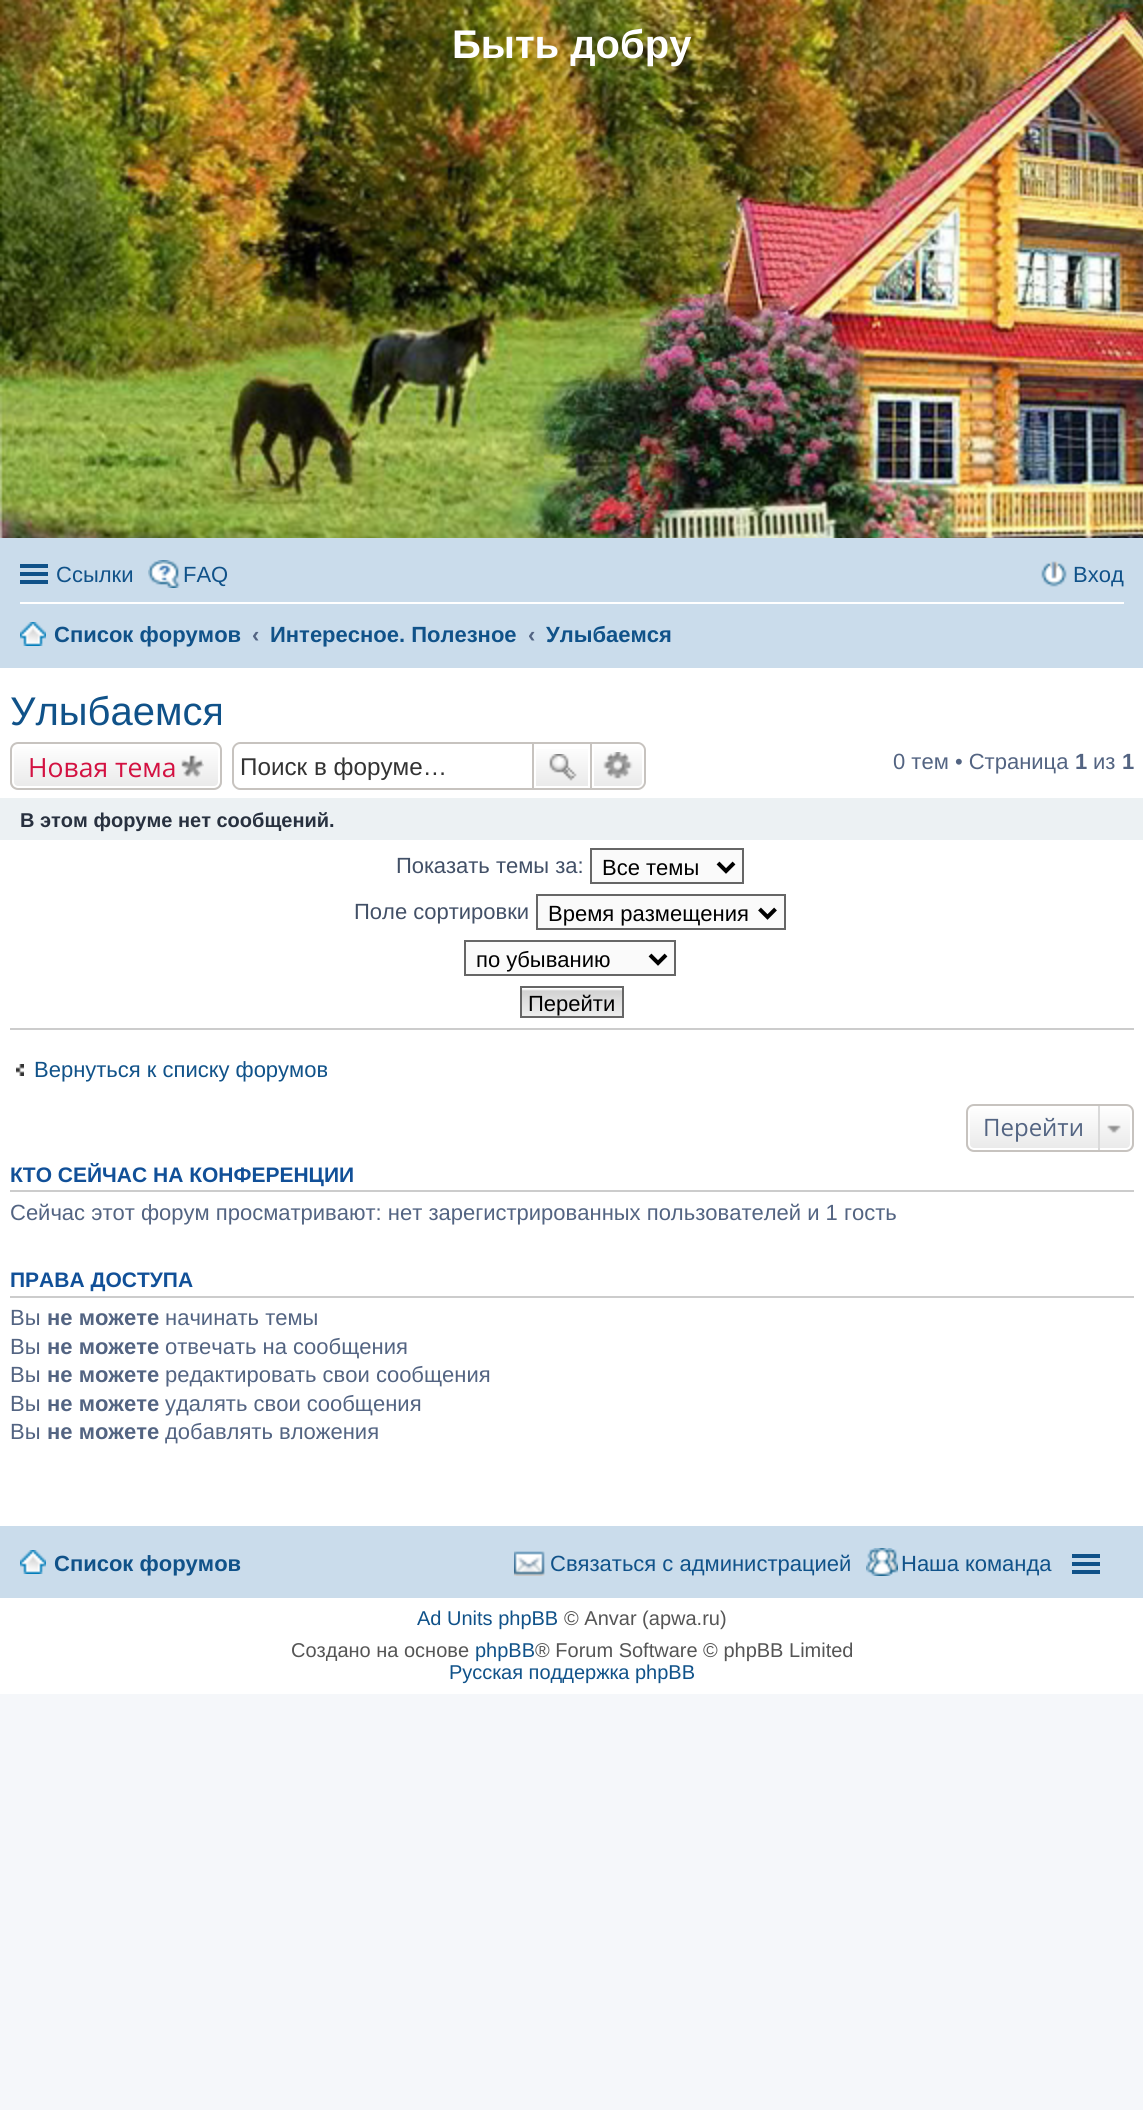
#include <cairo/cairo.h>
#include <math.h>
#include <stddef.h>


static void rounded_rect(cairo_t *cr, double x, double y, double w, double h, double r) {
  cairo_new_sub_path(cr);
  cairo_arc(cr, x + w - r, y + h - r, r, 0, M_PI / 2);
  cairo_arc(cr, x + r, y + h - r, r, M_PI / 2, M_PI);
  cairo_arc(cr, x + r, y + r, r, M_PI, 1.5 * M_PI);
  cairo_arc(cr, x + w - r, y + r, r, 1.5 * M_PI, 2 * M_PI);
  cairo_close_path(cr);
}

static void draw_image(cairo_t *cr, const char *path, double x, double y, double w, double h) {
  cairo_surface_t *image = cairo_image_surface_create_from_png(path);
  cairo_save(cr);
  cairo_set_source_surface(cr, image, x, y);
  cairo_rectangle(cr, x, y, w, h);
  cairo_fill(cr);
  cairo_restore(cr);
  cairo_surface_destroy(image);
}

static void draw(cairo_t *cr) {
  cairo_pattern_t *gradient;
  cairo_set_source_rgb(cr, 245 / 255.0, 247 / 255.0, 250 / 255.0);
  cairo_paint(cr);
  cairo_set_source_rgb(cr, 1, 1, 1);
  cairo_rectangle(cr, 0, 668, 1143, 1026);
  cairo_fill(cr);
  draw_image(cr, "images/1.png", 0, 0, 1143, 538);
  cairo_set_source_rgb(cr, 202 / 255.0, 220 / 255.0, 235 / 255.0);
  cairo_rectangle(cr, 0, 538, 1143, 130);
  cairo_fill(cr);
  cairo_set_source_rgb(cr, 16 / 255.0, 82 / 255.0, 137 / 255.0);
  cairo_rectangle(cr, 20, 564, 28, 4);
  cairo_fill(cr);
  cairo_rectangle(cr, 20, 572, 28, 4);
  cairo_fill(cr);
  cairo_rectangle(cr, 20, 580, 28, 4);
  cairo_fill(cr);
  draw_image(cr, "images/2.png", 148, 560, 32, 28);
  draw_image(cr, "images/3.png", 1041, 561, 26, 26);
  cairo_set_source_rgb(cr, 1, 1, 1);
  cairo_rectangle(cr, 20, 602, 1104, 2);
  cairo_fill(cr);
  draw_image(cr, "images/4.png", 20, 622, 26, 24);
  cairo_save(cr);
  rounded_rect(cr, 10, 742, 212, 48, 8);
  cairo_clip(cr);
  gradient = cairo_pattern_create_linear(116, 744, 116, 788);
  cairo_pattern_add_color_stop_rgba(gradient, 0, 1, 1, 1, 1);
  cairo_pattern_add_color_stop_rgba(gradient, 1, 233 / 255.0, 233 / 255.0, 233 / 255.0, 1);
  cairo_set_source(cr, gradient);
  cairo_pattern_destroy(gradient);
  cairo_rectangle(cr, 10, 744, 212, 44);
  cairo_fill(cr);
  cairo_restore(cr);
  rounded_rect(cr, 13, 745, 206, 42, 5);
  cairo_stroke(cr);
  rounded_rect(cr, 11, 743, 210, 46, 7);
  cairo_set_source_rgb(cr, 199 / 255.0, 195 / 255.0, 191 / 255.0);
  cairo_stroke(cr);
  draw_image(cr, "images/5.png", 181, 755, 23, 23);
  cairo_set_fill_rule(cr, CAIRO_FILL_RULE_EVEN_ODD);
  cairo_new_path(cr);
  cairo_move_to(cr, 240, 742);
  cairo_line_to(cr, 532, 742);
  cairo_line_to(cr, 532, 790);
  cairo_line_to(cr, 240, 790);
  cairo_curve_to(cr, 236, 790, 232, 786, 232, 782);
  cairo_line_to(cr, 232, 750);
  cairo_curve_to(cr, 232, 746, 236, 742, 240, 742);
  cairo_close_path(cr);
  cairo_move_to(cr, 240, 744);
  cairo_line_to(cr, 532, 744);
  cairo_line_to(cr, 532, 788);
  cairo_line_to(cr, 240, 788);
  cairo_curve_to(cr, 237, 788, 234, 785, 234, 782);
  cairo_line_to(cr, 234, 750);
  cairo_curve_to(cr, 234, 747, 237, 744, 240, 744);
  cairo_close_path(cr);
  cairo_fill(cr);
  gradient = cairo_pattern_create_linear(562, 744, 562, 788);
  cairo_pattern_add_color_stop_rgba(gradient, 0, 1, 1, 1, 1);
  cairo_pattern_add_color_stop_rgba(gradient, 1, 233 / 255.0, 233 / 255.0, 233 / 255.0, 1);
  cairo_set_source(cr, gradient);
  cairo_pattern_destroy(gradient);
  cairo_rectangle(cr, 536, 749, 52, 37);
  cairo_fill(cr);
  cairo_rectangle(cr, 533, 743, 58, 46);
  cairo_set_source_rgb(cr, 199 / 255.0, 195 / 255.0, 191 / 255.0);
  cairo_stroke(cr);
  draw_image(cr, "images/6.png", 549, 754, 28, 27);
  gradient = cairo_pattern_create_linear(618, 744, 618, 788);
  cairo_pattern_add_color_stop_rgba(gradient, 0, 1, 1, 1, 1);
  cairo_pattern_add_color_stop_rgba(gradient, 1, 233 / 255.0, 233 / 255.0, 233 / 255.0, 1);
  cairo_set_source(cr, gradient);
  cairo_pattern_destroy(gradient);
  cairo_new_path(cr);
  cairo_move_to(cr, 593, 745);
  cairo_line_to(cr, 638, 745);
  cairo_curve_to(cr, 641, 745, 643, 747, 643, 750);
  cairo_line_to(cr, 643, 782);
  cairo_curve_to(cr, 643, 785, 641, 787, 638, 787);
  cairo_line_to(cr, 593, 787);
  cairo_close_path(cr);
  cairo_fill_preserve(cr);
  cairo_set_source_rgb(cr, 1, 1, 1);
  cairo_stroke(cr);
  cairo_set_source_rgb(cr, 199 / 255.0, 195 / 255.0, 191 / 255.0);
  cairo_new_path(cr);
  cairo_move_to(cr, 592, 742);
  cairo_line_to(cr, 638, 742);
  cairo_curve_to(cr, 642, 742, 646, 746, 646, 750);
  cairo_line_to(cr, 646, 782);
  cairo_curve_to(cr, 646, 786, 642, 790, 638, 790);
  cairo_line_to(cr, 592, 790);
  cairo_close_path(cr);
  cairo_move_to(cr, 592, 744);
  cairo_line_to(cr, 638, 744);
  cairo_curve_to(cr, 641, 744, 644, 747, 644, 750);
  cairo_line_to(cr, 644, 782);
  cairo_curve_to(cr, 644, 785, 641, 788, 638, 788);
  cairo_line_to(cr, 592, 788);
  cairo_close_path(cr);
  cairo_fill(cr);
  draw_image(cr, "images/7.png", 603, 752, 30, 27);
  cairo_set_source_rgb(cr, 236 / 255.0, 241 / 255.0, 243 / 255.0);
  cairo_rectangle(cr, 0, 798, 1143, 42);
  cairo_fill(cr);
  cairo_set_source_rgb(cr, 250 / 255.0, 250 / 255.0, 250 / 255.0);
  cairo_rectangle(cr, 591, 849, 152, 34);
  cairo_fill_preserve(cr);
  cairo_set_source_rgb(cr, 102 / 255.0, 102 / 255.0, 102 / 255.0);
  cairo_stroke(cr);
  cairo_new_path(cr);
  cairo_move_to(cr, 718, 863);
  cairo_line_to(cr, 726, 871);
  cairo_line_to(cr, 734, 863);
  cairo_set_source_rgb(cr, 0, 0, 0);
  cairo_set_line_width(cr, 4);
  cairo_stroke(cr);
  cairo_set_source_rgb(cr, 250 / 255.0, 250 / 255.0, 250 / 255.0);
  cairo_rectangle(cr, 537, 895, 248, 34);
  cairo_fill_preserve(cr);
  cairo_set_source_rgb(cr, 102 / 255.0, 102 / 255.0, 102 / 255.0);
  cairo_set_line_width(cr, 2);
  cairo_stroke(cr);
  cairo_new_path(cr);
  cairo_move_to(cr, 759.5, 909);
  cairo_line_to(cr, 767.5, 917);
  cairo_line_to(cr, 775.5, 909);
  cairo_set_source_rgb(cr, 0, 0, 0);
  cairo_set_line_width(cr, 4);
  cairo_stroke(cr);
  cairo_set_source_rgb(cr, 250 / 255.0, 250 / 255.0, 250 / 255.0);
  cairo_rectangle(cr, 465, 941, 210, 34);
  cairo_fill_preserve(cr);
  cairo_set_source_rgb(cr, 102 / 255.0, 102 / 255.0, 102 / 255.0);
  cairo_set_line_width(cr, 2);
  cairo_stroke(cr);
  cairo_new_path(cr);
  cairo_move_to(cr, 650, 955);
  cairo_line_to(cr, 658, 963);
  cairo_line_to(cr, 666, 955);
  cairo_set_source_rgb(cr, 0, 0, 0);
  cairo_set_line_width(cr, 4);
  cairo_stroke(cr);
  draw_image(cr, "images/8.png", 522, 988, 100, 28);
  cairo_rectangle(cr, 521, 987, 102, 30);
  cairo_set_source_rgb(cr, 102 / 255.0, 102 / 255.0, 102 / 255.0);
  cairo_set_line_width(cr, 2);
  cairo_stroke(cr);
  cairo_set_source_rgb(cr, 204 / 255.0, 204 / 255.0, 204 / 255.0);
  cairo_rectangle(cr, 10, 1028, 1124, 2);
  cairo_fill(cr);
  draw_image(cr, "images/9.png", 16, 1064, 8, 12);
  cairo_save(cr);
  cairo_set_fill_rule(cr, CAIRO_FILL_RULE_WINDING);
  rounded_rect(cr, 966, 1104, 168, 48, 8);
  cairo_clip(cr);
  gradient = cairo_pattern_create_linear(1050, 1106, 1050, 1150);
  cairo_pattern_add_color_stop_rgba(gradient, 0, 1, 1, 1, 1);
  cairo_pattern_add_color_stop_rgba(gradient, 1, 233 / 255.0, 233 / 255.0, 233 / 255.0, 1);
  cairo_set_source(cr, gradient);
  cairo_pattern_destroy(gradient);
  cairo_rectangle(cr, 966, 1106, 168, 44);
  cairo_fill(cr);
  cairo_restore(cr);
  rounded_rect(cr, 969, 1107, 162, 42, 5);
  cairo_set_source_rgb(cr, 1, 1, 1);
  cairo_stroke(cr);
  rounded_rect(cr, 967, 1105, 166, 46, 7);
  cairo_set_source_rgb(cr, 199 / 255.0, 195 / 255.0, 191 / 255.0);
  cairo_stroke(cr);
  draw_image(cr, "images/10.png", 1107, 1125, 14, 9);
  cairo_set_source_rgb(cr, 218 / 255.0, 218 / 255.0, 218 / 255.0);
  cairo_rectangle(cr, 1098, 1106, 2, 44);
  cairo_fill(cr);
  cairo_set_source_rgb(cr, 204 / 255.0, 204 / 255.0, 204 / 255.0);
  cairo_rectangle(cr, 10, 1190, 1124, 2);
  cairo_fill(cr);
  cairo_rectangle(cr, 10, 1296, 1124, 2);
  cairo_fill(cr);
  cairo_set_source_rgb(cr, 202 / 255.0, 220 / 255.0, 235 / 255.0);
  cairo_rectangle(cr, 0, 1526, 1143, 72);
  cairo_fill(cr);
  draw_image(cr, "images/4.png", 20, 1550, 26, 24);
  draw_image(cr, "images/11.png", 514, 1551, 31, 25);
  draw_image(cr, "images/12.png", 866, 1548, 32, 28);
  cairo_set_source_rgb(cr, 16 / 255.0, 82 / 255.0, 137 / 255.0);
  cairo_rectangle(cr, 1072, 1554, 28, 4);
  cairo_fill(cr);
  cairo_rectangle(cr, 1072, 1562, 28, 4);
  cairo_fill(cr);
  cairo_rectangle(cr, 1072, 1570, 28, 4);
  cairo_fill(cr);
  cairo_select_font_face(cr, "Liberation Sans", CAIRO_FONT_SLANT_NORMAL, CAIRO_FONT_WEIGHT_BOLD);
  cairo_set_font_size(cr, 40);
  cairo_set_source_rgb(cr, 1, 1, 1);
  cairo_move_to(cr, 452, 58);
  cairo_show_text(cr, "Быть добру");
  cairo_select_font_face(cr, "Liberation Sans", CAIRO_FONT_SLANT_NORMAL, CAIRO_FONT_WEIGHT_NORMAL);
  cairo_set_font_size(cr, 22);
  cairo_set_source_rgb(cr, 16 / 255.0, 82 / 255.0, 137 / 255.0);
  cairo_move_to(cr, 56, 582);
  cairo_show_text(cr, "Ссылки");
  cairo_move_to(cr, 183, 582);
  cairo_show_text(cr, "FAQ");
  cairo_move_to(cr, 1073, 582);
  cairo_show_text(cr, "Вход");
  cairo_select_font_face(cr, "Liberation Sans", CAIRO_FONT_SLANT_NORMAL, CAIRO_FONT_WEIGHT_BOLD);
  cairo_move_to(cr, 54, 642);
  cairo_show_text(cr, "Список форумов");
  cairo_set_source_rgb(cr, 83 / 255.0, 100 / 255.0, 130 / 255.0);
  cairo_move_to(cr, 252, 642);
  cairo_show_text(cr, "‹");
  cairo_set_source_rgb(cr, 16 / 255.0, 82 / 255.0, 137 / 255.0);
  cairo_move_to(cr, 270, 642);
  cairo_show_text(cr, "Интересное. Полезное");
  cairo_set_source_rgb(cr, 83 / 255.0, 100 / 255.0, 130 / 255.0);
  cairo_move_to(cr, 528, 642);
  cairo_show_text(cr, "‹");
  cairo_set_source_rgb(cr, 16 / 255.0, 82 / 255.0, 137 / 255.0);
  cairo_move_to(cr, 546, 642);
  cairo_show_text(cr, "Улыбаемся");
  cairo_select_font_face(cr, "Liberation Sans", CAIRO_FONT_SLANT_NORMAL, CAIRO_FONT_WEIGHT_NORMAL);
  cairo_set_font_size(cr, 40);
  cairo_move_to(cr, 10, 725);
  cairo_show_text(cr, "Улыбаемся");
  cairo_select_font_face(cr, "Open Sans", CAIRO_FONT_SLANT_NORMAL, CAIRO_FONT_WEIGHT_NORMAL);
  cairo_set_font_size(cr, 26.5);
  cairo_set_source_rgb(cr, 211 / 255.0, 17 / 255.0, 65 / 255.0);
  cairo_move_to(cr, 28, 777);
  cairo_show_text(cr, "Новая тема");
  cairo_select_font_face(cr, "Liberation Sans", CAIRO_FONT_SLANT_NORMAL, CAIRO_FONT_WEIGHT_NORMAL);
  cairo_set_font_size(cr, 24.25);
  cairo_set_source_rgb(cr, 51 / 255.0, 51 / 255.0, 51 / 255.0);
  cairo_move_to(cr, 240, 775);
  cairo_show_text(cr, "Поиск в форуме…");
  cairo_set_font_size(cr, 22);
  cairo_set_source_rgb(cr, 83 / 255.0, 100 / 255.0, 130 / 255.0);
  cairo_move_to(cr, 893, 769);
  cairo_show_text(cr, "0 тем • Страница");
  cairo_select_font_face(cr, "Liberation Sans", CAIRO_FONT_SLANT_NORMAL, CAIRO_FONT_WEIGHT_BOLD);
  cairo_move_to(cr, 1075, 769);
  cairo_show_text(cr, "1");
  cairo_select_font_face(cr, "Liberation Sans", CAIRO_FONT_SLANT_NORMAL, CAIRO_FONT_WEIGHT_NORMAL);
  cairo_move_to(cr, 1093, 769);
  cairo_show_text(cr, "из");
  cairo_select_font_face(cr, "Liberation Sans", CAIRO_FONT_SLANT_NORMAL, CAIRO_FONT_WEIGHT_BOLD);
  cairo_move_to(cr, 1122, 769);
  cairo_show_text(cr, "1");
  cairo_set_font_size(cr, 20);
  cairo_set_source_rgb(cr, 40 / 255.0, 49 / 255.0, 63 / 255.0);
  cairo_move_to(cr, 20, 827);
  cairo_show_text(cr, "В этом форуме нет сообщений.");
  cairo_select_font_face(cr, "Liberation Sans", CAIRO_FONT_SLANT_NORMAL, CAIRO_FONT_WEIGHT_NORMAL);
  cairo_set_font_size(cr, 22);
  cairo_set_source_rgb(cr, 66 / 255.0, 80 / 255.0, 103 / 255.0);
  cairo_move_to(cr, 396, 873);
  cairo_show_text(cr, "Показать темы за:");
  cairo_set_source_rgb(cr, 0, 0, 0);
  cairo_move_to(cr, 602, 875);
  cairo_show_text(cr, "Все темы");
  cairo_set_source_rgb(cr, 66 / 255.0, 80 / 255.0, 103 / 255.0);
  cairo_move_to(cr, 354, 919);
  cairo_show_text(cr, "Поле сортировки");
  cairo_set_source_rgb(cr, 0, 0, 0);
  cairo_move_to(cr, 548, 921);
  cairo_show_text(cr, "Время размещения");
  cairo_move_to(cr, 476, 967);
  cairo_show_text(cr, "по убыванию");
  cairo_move_to(cr, 528, 1011);
  cairo_show_text(cr, "Перейти");
  cairo_set_source_rgb(cr, 16 / 255.0, 82 / 255.0, 137 / 255.0);
  cairo_move_to(cr, 34, 1077);
  cairo_show_text(cr, "Вернуться к списку форумов");
  cairo_select_font_face(cr, "Open Sans", CAIRO_FONT_SLANT_NORMAL, CAIRO_FONT_WEIGHT_NORMAL);
  cairo_set_font_size(cr, 24);
  cairo_set_source_rgb(cr, 83 / 255.0, 100 / 255.0, 130 / 255.0);
  cairo_move_to(cr, 983, 1136);
  cairo_show_text(cr, "Перейти");
  cairo_select_font_face(cr, "Liberation Sans", CAIRO_FONT_SLANT_NORMAL, CAIRO_FONT_WEIGHT_BOLD);
  cairo_set_font_size(cr, 21);
  cairo_set_source_rgb(cr, 17 / 255.0, 80 / 255.0, 152 / 255.0);
  cairo_move_to(cr, 10, 1182);
  cairo_show_text(cr, "КТО СЕЙЧАС НА КОНФЕРЕНЦИИ");
  cairo_select_font_face(cr, "Liberation Sans", CAIRO_FONT_SLANT_NORMAL, CAIRO_FONT_WEIGHT_NORMAL);
  cairo_set_font_size(cr, 22);
  cairo_set_source_rgb(cr, 83 / 255.0, 100 / 255.0, 130 / 255.0);
  cairo_move_to(cr, 10, 1220);
  cairo_show_text(cr, "Сейчас этот форум просматривают: нет зарегистрированных пользователей и 1 гость");
  cairo_select_font_face(cr, "Liberation Sans", CAIRO_FONT_SLANT_NORMAL, CAIRO_FONT_WEIGHT_BOLD);
  cairo_set_font_size(cr, 21);
  cairo_set_source_rgb(cr, 17 / 255.0, 80 / 255.0, 152 / 255.0);
  cairo_move_to(cr, 10, 1287);
  cairo_show_text(cr, "ПРАВА ДОСТУПА");
  cairo_select_font_face(cr, "Liberation Sans", CAIRO_FONT_SLANT_NORMAL, CAIRO_FONT_WEIGHT_NORMAL);
  cairo_set_font_size(cr, 22);
  cairo_set_source_rgb(cr, 83 / 255.0, 100 / 255.0, 130 / 255.0);
  cairo_move_to(cr, 10, 1325);
  cairo_show_text(cr, "Вы");
  cairo_select_font_face(cr, "Liberation Sans", CAIRO_FONT_SLANT_NORMAL, CAIRO_FONT_WEIGHT_BOLD);
  cairo_move_to(cr, 47, 1325);
  cairo_show_text(cr, "не можете");
  cairo_select_font_face(cr, "Liberation Sans", CAIRO_FONT_SLANT_NORMAL, CAIRO_FONT_WEIGHT_NORMAL);
  cairo_move_to(cr, 165, 1325);
  cairo_show_text(cr, "начинать темы");
  cairo_move_to(cr, 10, 1354);
  cairo_show_text(cr, "Вы");
  cairo_select_font_face(cr, "Liberation Sans", CAIRO_FONT_SLANT_NORMAL, CAIRO_FONT_WEIGHT_BOLD);
  cairo_move_to(cr, 47, 1354);
  cairo_show_text(cr, "не можете");
  cairo_select_font_face(cr, "Liberation Sans", CAIRO_FONT_SLANT_NORMAL, CAIRO_FONT_WEIGHT_NORMAL);
  cairo_move_to(cr, 165, 1354);
  cairo_show_text(cr, "отвечать на сообщения");
  cairo_move_to(cr, 10, 1382);
  cairo_show_text(cr, "Вы");
  cairo_select_font_face(cr, "Liberation Sans", CAIRO_FONT_SLANT_NORMAL, CAIRO_FONT_WEIGHT_BOLD);
  cairo_move_to(cr, 47, 1382);
  cairo_show_text(cr, "не можете");
  cairo_select_font_face(cr, "Liberation Sans", CAIRO_FONT_SLANT_NORMAL, CAIRO_FONT_WEIGHT_NORMAL);
  cairo_move_to(cr, 165, 1382);
  cairo_show_text(cr, "редактировать свои сообщения");
  cairo_move_to(cr, 10, 1411);
  cairo_show_text(cr, "Вы");
  cairo_select_font_face(cr, "Liberation Sans", CAIRO_FONT_SLANT_NORMAL, CAIRO_FONT_WEIGHT_BOLD);
  cairo_move_to(cr, 47, 1411);
  cairo_show_text(cr, "не можете");
  cairo_select_font_face(cr, "Liberation Sans", CAIRO_FONT_SLANT_NORMAL, CAIRO_FONT_WEIGHT_NORMAL);
  cairo_move_to(cr, 165, 1411);
  cairo_show_text(cr, "удалять свои сообщения");
  cairo_move_to(cr, 10, 1439);
  cairo_show_text(cr, "Вы");
  cairo_select_font_face(cr, "Liberation Sans", CAIRO_FONT_SLANT_NORMAL, CAIRO_FONT_WEIGHT_BOLD);
  cairo_move_to(cr, 47, 1439);
  cairo_show_text(cr, "не можете");
  cairo_select_font_face(cr, "Liberation Sans", CAIRO_FONT_SLANT_NORMAL, CAIRO_FONT_WEIGHT_NORMAL);
  cairo_move_to(cr, 165, 1439);
  cairo_show_text(cr, "добавлять вложения");
  cairo_select_font_face(cr, "Liberation Sans", CAIRO_FONT_SLANT_NORMAL, CAIRO_FONT_WEIGHT_BOLD);
  cairo_set_source_rgb(cr, 16 / 255.0, 82 / 255.0, 137 / 255.0);
  cairo_move_to(cr, 54, 1571);
  cairo_show_text(cr, "Список форумов");
  cairo_select_font_face(cr, "Liberation Sans", CAIRO_FONT_SLANT_NORMAL, CAIRO_FONT_WEIGHT_NORMAL);
  cairo_move_to(cr, 550, 1571);
  cairo_show_text(cr, "Связаться с администрацией");
  cairo_move_to(cr, 901, 1571);
  cairo_show_text(cr, "Наша команда");
  cairo_set_font_size(cr, 20);
  cairo_move_to(cr, 417, 1625);
  cairo_show_text(cr, "Ad Units phpBB");
  cairo_set_source_rgb(cr, 85 / 255.0, 85 / 255.0, 85 / 255.0);
  cairo_move_to(cr, 564, 1625);
  cairo_show_text(cr, "© Anvar (apwa.ru)");
  cairo_move_to(cr, 291, 1657);
  cairo_show_text(cr, "Создано на основе");
  cairo_set_source_rgb(cr, 16 / 255.0, 82 / 255.0, 137 / 255.0);
  cairo_move_to(cr, 475, 1657);
  cairo_show_text(cr, "phpBB");
  cairo_set_source_rgb(cr, 85 / 255.0, 85 / 255.0, 85 / 255.0);
  cairo_move_to(cr, 535, 1657);
  cairo_show_text(cr, "® Forum Software © phpBB Limited");
  cairo_set_source_rgb(cr, 16 / 255.0, 82 / 255.0, 137 / 255.0);
  cairo_move_to(cr, 449, 1679);
  cairo_show_text(cr, "Русская поддержка phpBB");
}

int main(void) {
  cairo_surface_t *surface = cairo_image_surface_create(CAIRO_FORMAT_RGB24, 1143, 2110);
  cairo_t *cr = cairo_create(surface);
  cairo_font_options_t *options = cairo_font_options_create();
  cairo_font_options_set_hint_metrics(options, CAIRO_HINT_METRICS_OFF);
  cairo_font_options_set_hint_style(options, CAIRO_HINT_STYLE_NONE);
  cairo_set_font_options(cr, options);
  cairo_set_miter_limit(cr, 4);
  draw(cr);
  cairo_surface_write_to_png(surface, "out.png");
  cairo_font_options_destroy(options);
  cairo_destroy(cr);
  cairo_surface_destroy(surface);
  return 0;
}
